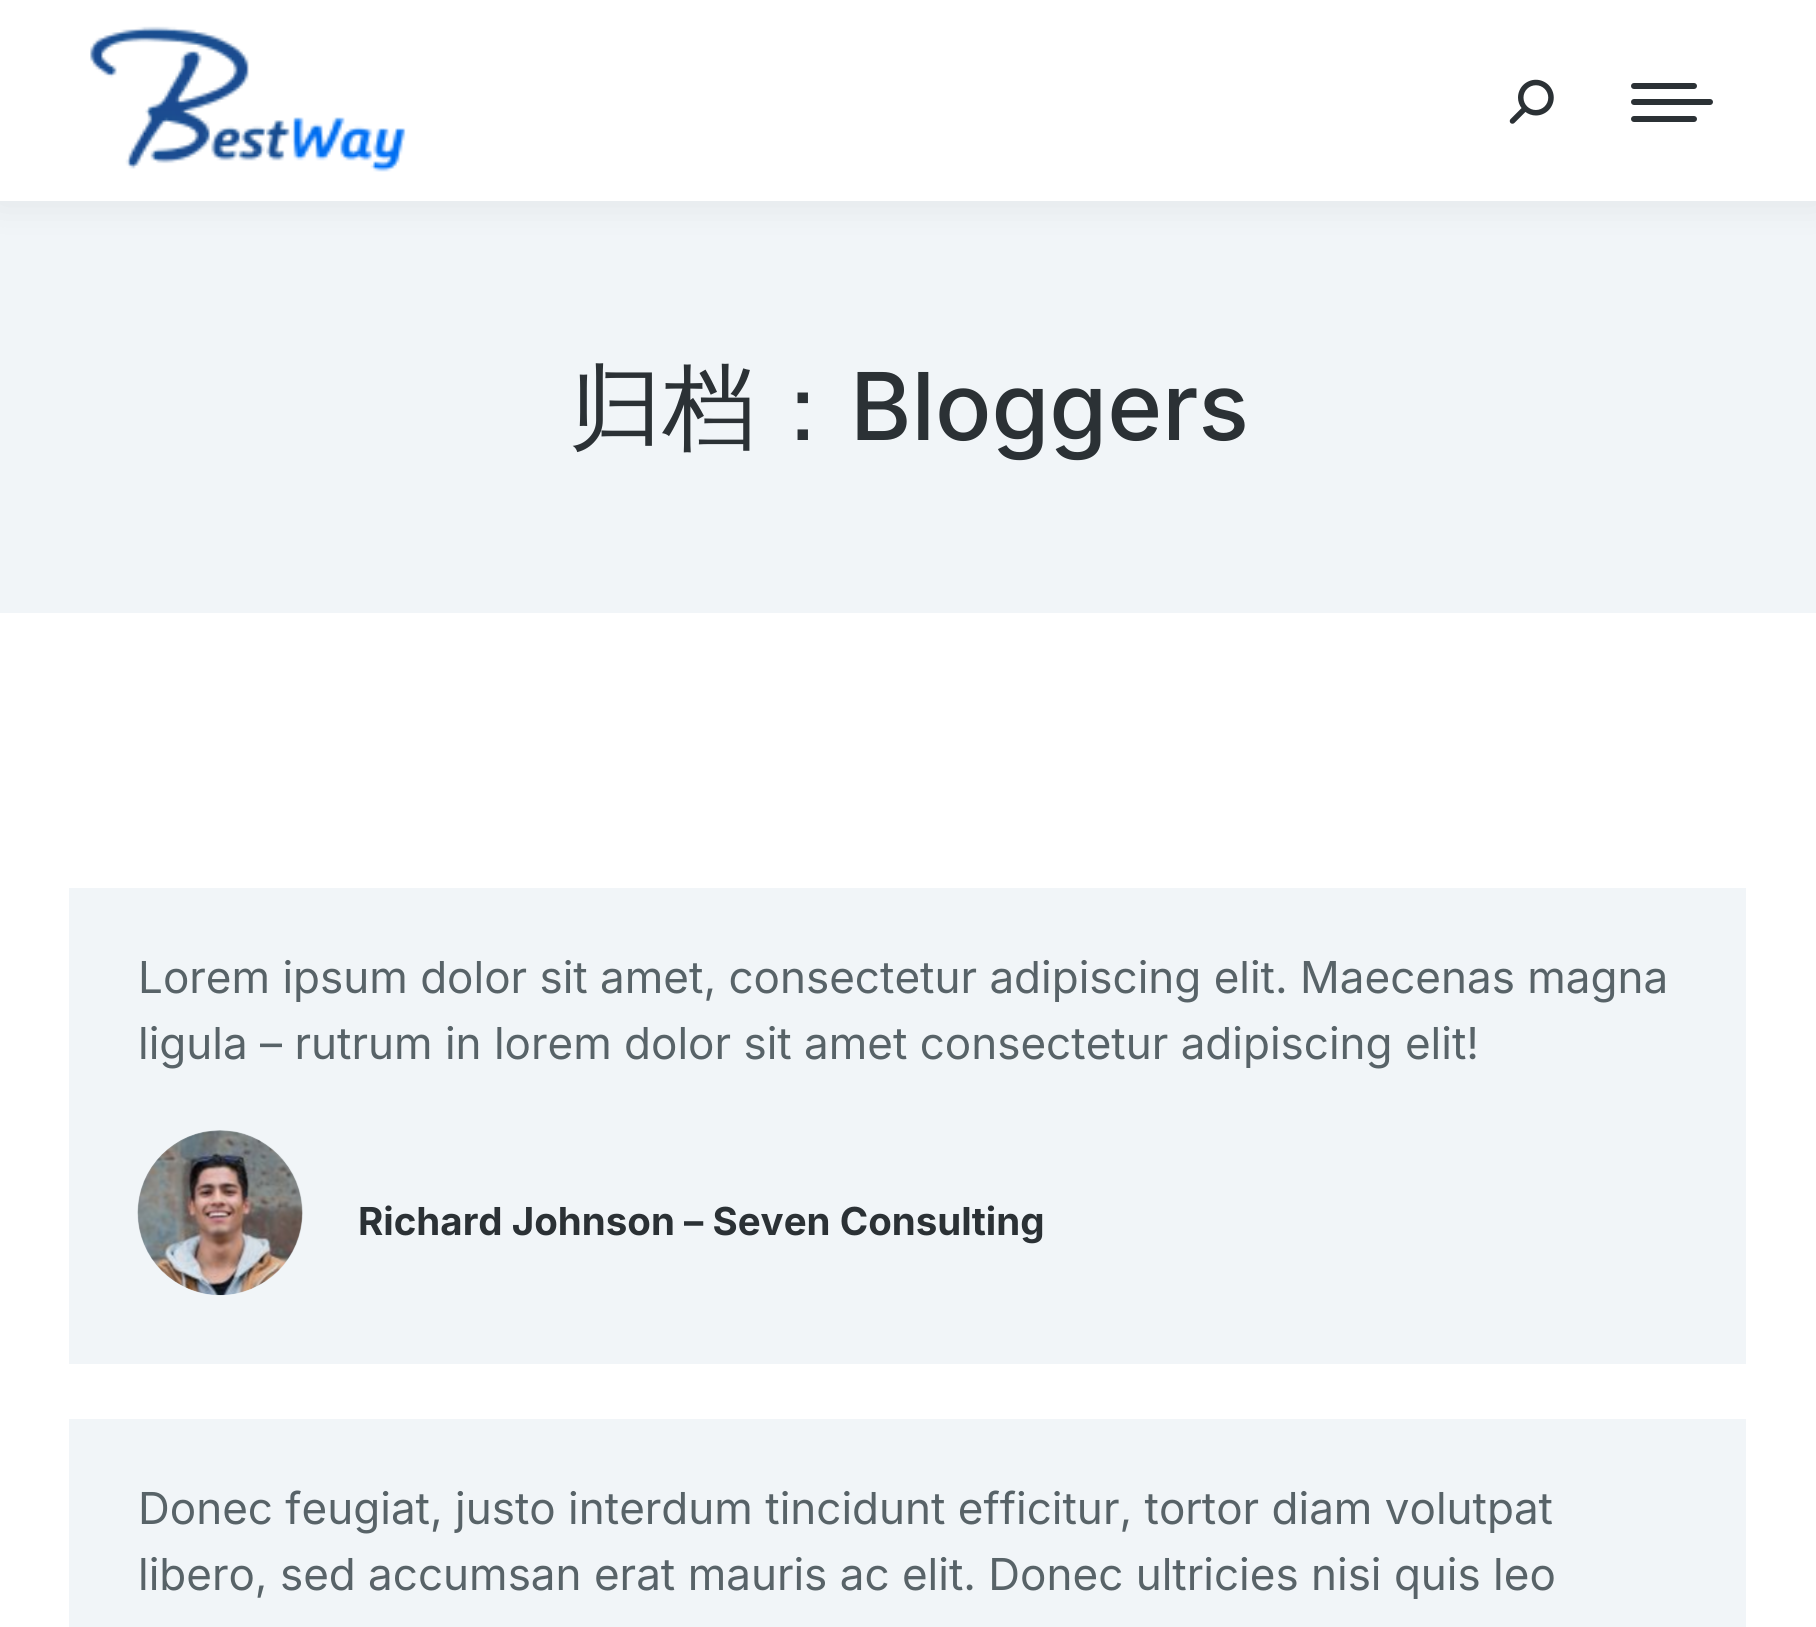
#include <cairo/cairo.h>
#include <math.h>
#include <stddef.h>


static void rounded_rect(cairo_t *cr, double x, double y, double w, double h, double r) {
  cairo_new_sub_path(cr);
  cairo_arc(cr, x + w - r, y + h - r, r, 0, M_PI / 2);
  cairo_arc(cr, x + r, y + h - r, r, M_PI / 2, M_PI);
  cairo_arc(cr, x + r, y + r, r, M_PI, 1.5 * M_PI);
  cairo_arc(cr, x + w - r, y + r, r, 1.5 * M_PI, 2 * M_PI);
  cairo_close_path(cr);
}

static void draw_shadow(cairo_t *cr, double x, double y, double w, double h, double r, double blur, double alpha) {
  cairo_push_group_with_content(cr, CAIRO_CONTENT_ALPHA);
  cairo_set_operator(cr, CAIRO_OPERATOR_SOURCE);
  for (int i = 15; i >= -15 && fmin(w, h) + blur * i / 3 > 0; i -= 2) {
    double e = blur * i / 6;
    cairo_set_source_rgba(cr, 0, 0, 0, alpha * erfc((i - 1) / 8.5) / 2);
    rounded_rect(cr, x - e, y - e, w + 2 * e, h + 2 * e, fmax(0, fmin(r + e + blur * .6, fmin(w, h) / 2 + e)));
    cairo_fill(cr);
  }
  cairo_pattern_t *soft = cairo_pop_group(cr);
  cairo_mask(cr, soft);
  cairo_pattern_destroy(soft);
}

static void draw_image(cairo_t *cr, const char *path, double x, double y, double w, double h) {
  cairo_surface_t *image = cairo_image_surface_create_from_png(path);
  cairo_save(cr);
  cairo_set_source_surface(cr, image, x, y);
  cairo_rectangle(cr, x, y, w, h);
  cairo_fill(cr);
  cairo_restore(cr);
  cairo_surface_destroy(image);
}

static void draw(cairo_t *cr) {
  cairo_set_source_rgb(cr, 1, 1, 1);
  cairo_paint(cr);
  cairo_set_source_rgb(cr, 241 / 255.0, 245 / 255.0, 248 / 255.0);
  cairo_rectangle(cr, 0, 201, 1816, 412);
  cairo_fill(cr);
  cairo_set_source_rgb(cr, 0, 0, 0);
  draw_shadow(cr, -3, -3, 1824, 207, 0, 20.5, 0.07);
  cairo_set_source_rgb(cr, 1, 1, 1);
  cairo_rectangle(cr, 0, 0, 1816, 201);
  cairo_fill(cr);
  draw_image(cr, "images/1.png", 90, 26, 316, 146);
  draw_image(cr, "images/2.png", 1509, 79, 45, 45);
  cairo_set_source_rgb(cr, 43 / 255.0, 49 / 255.0, 53 / 255.0);
  rounded_rect(cr, 1631, 83, 66, 6, 3);
  cairo_fill(cr);
  rounded_rect(cr, 1631, 99, 82, 6, 3);
  cairo_fill(cr);
  rounded_rect(cr, 1631, 116, 66, 6, 3);
  cairo_fill(cr);
  cairo_set_source_rgb(cr, 241 / 255.0, 245 / 255.0, 248 / 255.0);
  cairo_rectangle(cr, 69, 888, 1677, 476);
  cairo_fill(cr);
  cairo_set_source_rgb(cr, 233 / 255.0, 238 / 255.0, 241 / 255.0);
  cairo_arc(cr, 220.5, 1212.5, 82.5, 0, 2 * M_PI);
  cairo_fill(cr);
  draw_image(cr, "images/3.png", 137, 1130, 166, 166);
  cairo_set_source_rgb(cr, 241 / 255.0, 245 / 255.0, 248 / 255.0);
  cairo_rectangle(cr, 69, 1419, 1677, 208);
  cairo_fill(cr);
  cairo_select_font_face(cr, "WenQuanYi Zen Hei Medium", CAIRO_FONT_SLANT_NORMAL, CAIRO_FONT_WEIGHT_NORMAL);
  cairo_set_font_size(cr, 93.5);
  cairo_set_source_rgb(cr, 43 / 255.0, 49 / 255.0, 53 / 255.0);
  cairo_move_to(cr, 569, 440);
  cairo_show_text(cr, "归档：");
  cairo_select_font_face(cr, "Inter Medium", CAIRO_FONT_SLANT_NORMAL, CAIRO_FONT_WEIGHT_NORMAL);
  cairo_move_to(cr, 850, 440);
  cairo_show_text(cr, "Bloggers");
  cairo_select_font_face(cr, "Inter", CAIRO_FONT_SLANT_NORMAL, CAIRO_FONT_WEIGHT_NORMAL);
  cairo_set_font_size(cr, 44);
  cairo_set_source_rgb(cr, 88 / 255.0, 99 / 255.0, 104 / 255.0);
  cairo_move_to(cr, 138, 993);
  cairo_show_text(cr, "Lorem ipsum dolor sit amet, consectetur adipiscing elit. Maecenas magna");
  cairo_move_to(cr, 138, 1059);
  cairo_show_text(cr, "ligula – rutrum in lorem dolor sit amet consectetur adipiscing elit!");
  cairo_select_font_face(cr, "Inter", CAIRO_FONT_SLANT_NORMAL, CAIRO_FONT_WEIGHT_BOLD);
  cairo_set_font_size(cr, 38.5);
  cairo_set_source_rgb(cr, 43 / 255.0, 49 / 255.0, 53 / 255.0);
  cairo_move_to(cr, 358, 1235);
  cairo_show_text(cr, "Richard Johnson – Seven Consulting");
  cairo_select_font_face(cr, "Inter", CAIRO_FONT_SLANT_NORMAL, CAIRO_FONT_WEIGHT_NORMAL);
  cairo_set_font_size(cr, 44);
  cairo_set_source_rgb(cr, 88 / 255.0, 99 / 255.0, 104 / 255.0);
  cairo_move_to(cr, 138, 1524);
  cairo_show_text(cr, "Donec feugiat, justo interdum tincidunt efficitur, tortor diam volutpat");
  cairo_move_to(cr, 138, 1590);
  cairo_show_text(cr, "libero, sed accumsan erat mauris ac elit. Donec ultricies nisi quis leo");
}

int main(void) {
  cairo_surface_t *surface = cairo_image_surface_create(CAIRO_FORMAT_RGB24, 1816, 1627);
  cairo_t *cr = cairo_create(surface);
  cairo_font_options_t *options = cairo_font_options_create();
  cairo_font_options_set_hint_metrics(options, CAIRO_HINT_METRICS_OFF);
  cairo_font_options_set_hint_style(options, CAIRO_HINT_STYLE_NONE);
  cairo_set_font_options(cr, options);
  cairo_set_miter_limit(cr, 4);
  draw(cr);
  cairo_surface_write_to_png(surface, "out.png");
  cairo_font_options_destroy(options);
  cairo_destroy(cr);
  cairo_surface_destroy(surface);
  return 0;
}
